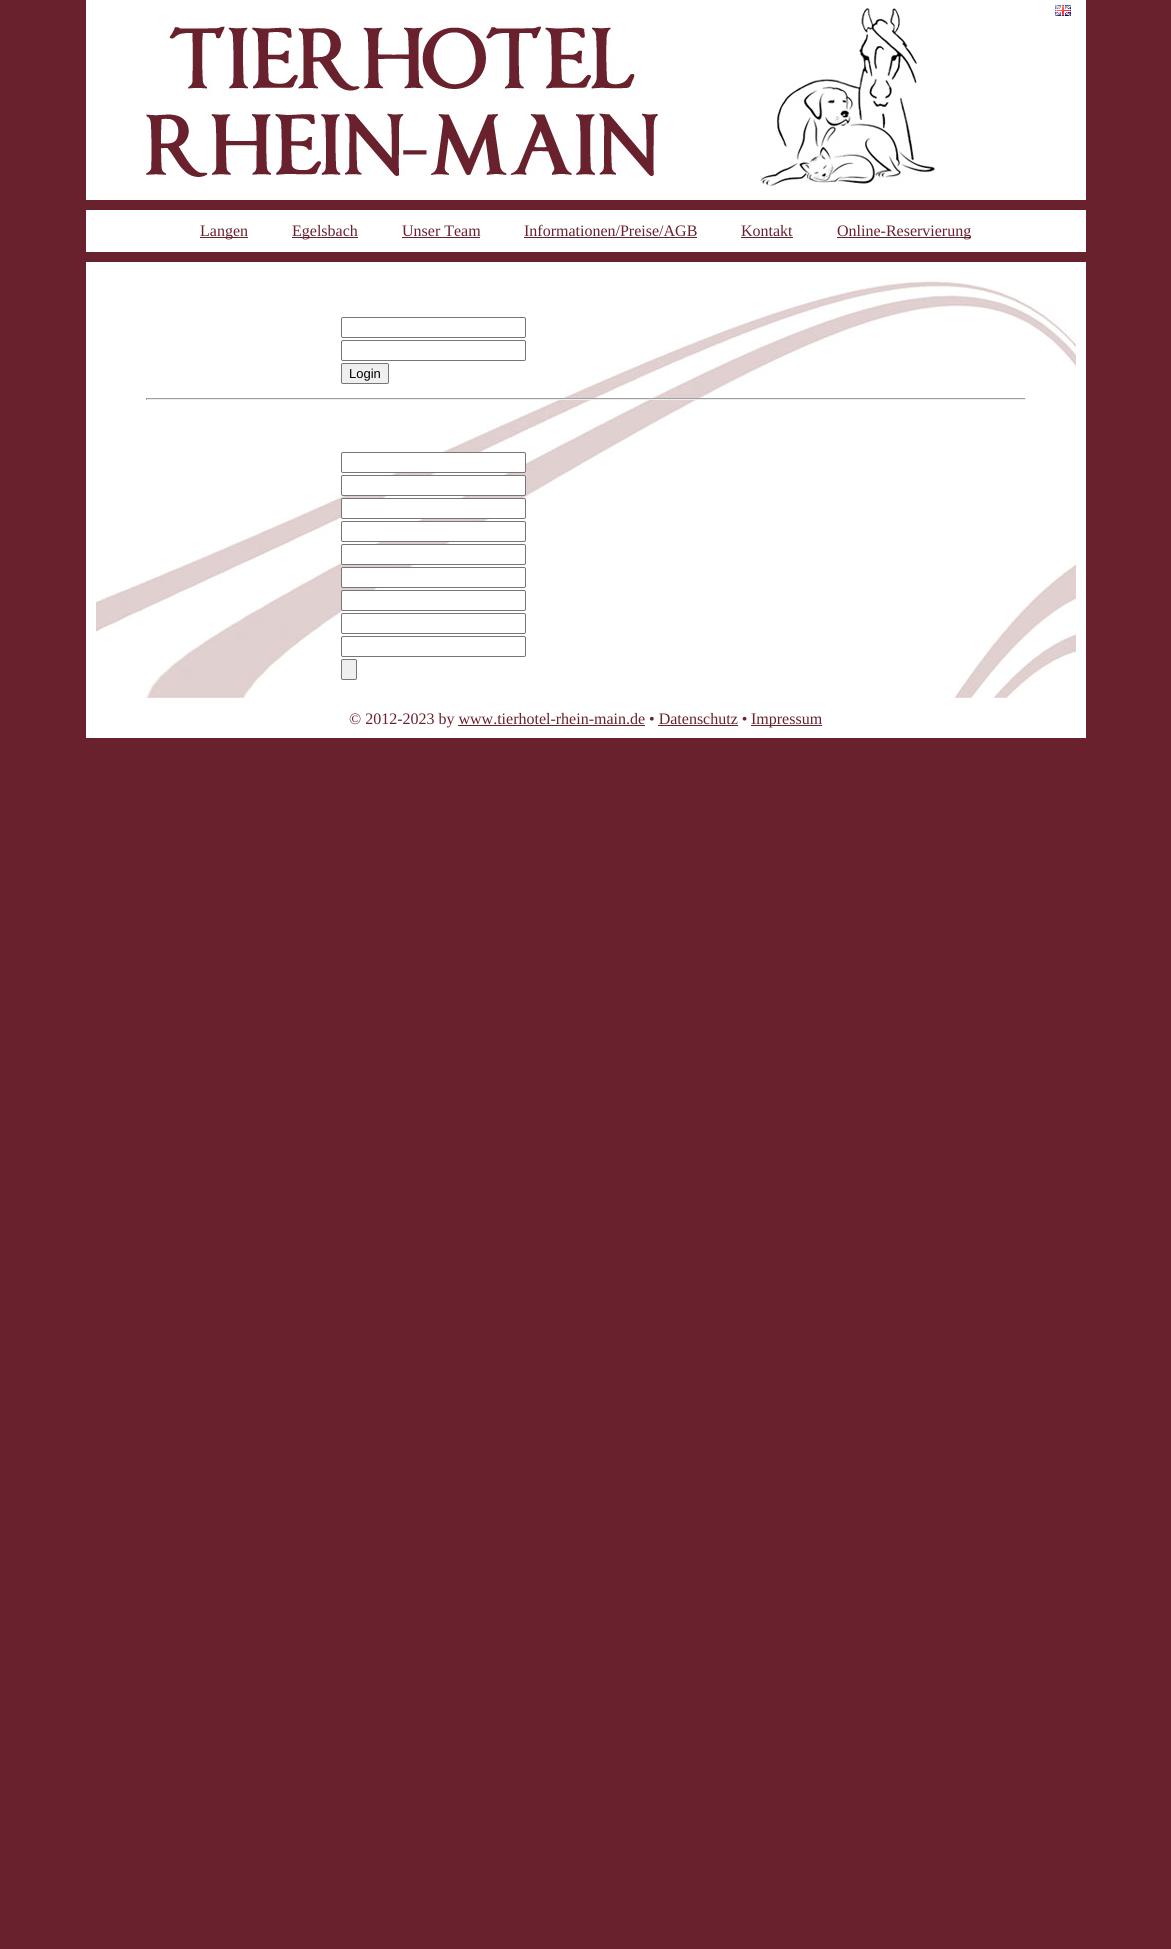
#include <cairo/cairo.h>
#include <math.h>
#include <stddef.h>


static void rounded_rect(cairo_t *cr, double x, double y, double w, double h, double r) {
  cairo_new_sub_path(cr);
  cairo_arc(cr, x + w - r, y + h - r, r, 0, M_PI / 2);
  cairo_arc(cr, x + r, y + h - r, r, M_PI / 2, M_PI);
  cairo_arc(cr, x + r, y + r, r, M_PI, 1.5 * M_PI);
  cairo_arc(cr, x + w - r, y + r, r, 1.5 * M_PI, 2 * M_PI);
  cairo_close_path(cr);
}

static void draw_image(cairo_t *cr, const char *path, double x, double y, double w, double h) {
  cairo_surface_t *image = cairo_image_surface_create_from_png(path);
  cairo_save(cr);
  cairo_set_source_surface(cr, image, x, y);
  cairo_rectangle(cr, x, y, w, h);
  cairo_fill(cr);
  cairo_restore(cr);
  cairo_surface_destroy(image);
}

static void draw(cairo_t *cr) {
  cairo_set_source_rgb(cr, 105 / 255.0, 33 / 255.0, 45 / 255.0);
  cairo_paint(cr);
  cairo_set_source_rgb(cr, 1, 1, 1);
  cairo_rectangle(cr, 86, 0, 1000, 738);
  cairo_fill(cr);
  draw_image(cr, "images/1.png", 143, 8, 793, 183);
  draw_image(cr, "images/2.png", 1055, 5, 16, 11);
  cairo_set_source_rgb(cr, 105 / 255.0, 33 / 255.0, 45 / 255.0);
  cairo_rectangle(cr, 86, 200, 1000, 10);
  cairo_fill(cr);
  cairo_rectangle(cr, 86, 252, 1000, 10);
  cairo_fill(cr);
  cairo_rectangle(cr, 200, 237, 48, 1);
  cairo_fill(cr);
  cairo_rectangle(cr, 292, 237, 66, 1);
  cairo_fill(cr);
  cairo_rectangle(cr, 402, 237, 78, 1);
  cairo_fill(cr);
  cairo_rectangle(cr, 524, 237, 173, 1);
  cairo_fill(cr);
  cairo_rectangle(cr, 741, 237, 52, 1);
  cairo_fill(cr);
  cairo_rectangle(cr, 837, 237, 134, 1);
  cairo_fill(cr);
  draw_image(cr, "images/3.png", 96, 279, 980, 419);
  rounded_rect(cr, 341.5, 317.5, 184, 20, 1.5);
  cairo_set_source_rgb(cr, 118 / 255.0, 118 / 255.0, 118 / 255.0);
  cairo_set_line_width(cr, 1);
  cairo_stroke(cr);
  rounded_rect(cr, 341.5, 340.5, 184, 20, 1.5);
  cairo_stroke(cr);
  cairo_set_source_rgb(cr, 239 / 255.0, 239 / 255.0, 239 / 255.0);
  rounded_rect(cr, 341.5, 363.5, 47, 20, 1.5);
  cairo_fill_preserve(cr);
  cairo_set_source_rgb(cr, 118 / 255.0, 118 / 255.0, 118 / 255.0);
  cairo_stroke(cr);
  cairo_set_source_rgb(cr, 159 / 255.0, 159 / 255.0, 159 / 255.0);
  cairo_rectangle(cr, 146, 398, 880, 1);
  cairo_fill(cr);
  cairo_set_source_rgb(cr, 238 / 255.0, 238 / 255.0, 238 / 255.0);
  cairo_rectangle(cr, 1025, 398, 1, 2);
  cairo_fill(cr);
  cairo_rectangle(cr, 146, 399, 880, 1);
  cairo_fill(cr);
  cairo_set_source_rgb(cr, 159 / 255.0, 159 / 255.0, 159 / 255.0);
  cairo_rectangle(cr, 146, 398, 1, 2);
  cairo_fill(cr);
  cairo_set_source_rgb(cr, 1, 1, 1);
  rounded_rect(cr, 341.5, 452.5, 184, 20, 1.5);
  cairo_fill_preserve(cr);
  cairo_set_source_rgb(cr, 118 / 255.0, 118 / 255.0, 118 / 255.0);
  cairo_stroke(cr);
  cairo_set_source_rgb(cr, 1, 1, 1);
  rounded_rect(cr, 341.5, 475.5, 184, 20, 1.5);
  cairo_fill_preserve(cr);
  cairo_set_source_rgb(cr, 118 / 255.0, 118 / 255.0, 118 / 255.0);
  cairo_stroke(cr);
  cairo_set_source_rgb(cr, 1, 1, 1);
  rounded_rect(cr, 341.5, 498.5, 184, 20, 1.5);
  cairo_fill_preserve(cr);
  cairo_set_source_rgb(cr, 118 / 255.0, 118 / 255.0, 118 / 255.0);
  cairo_stroke(cr);
  cairo_set_source_rgb(cr, 1, 1, 1);
  rounded_rect(cr, 341.5, 521.5, 184, 20, 1.5);
  cairo_fill_preserve(cr);
  cairo_set_source_rgb(cr, 118 / 255.0, 118 / 255.0, 118 / 255.0);
  cairo_stroke(cr);
  cairo_set_source_rgb(cr, 1, 1, 1);
  rounded_rect(cr, 341.5, 544.5, 184, 20, 1.5);
  cairo_fill_preserve(cr);
  cairo_set_source_rgb(cr, 118 / 255.0, 118 / 255.0, 118 / 255.0);
  cairo_stroke(cr);
  cairo_set_source_rgb(cr, 1, 1, 1);
  rounded_rect(cr, 341.5, 567.5, 184, 20, 1.5);
  cairo_fill_preserve(cr);
  cairo_set_source_rgb(cr, 118 / 255.0, 118 / 255.0, 118 / 255.0);
  cairo_stroke(cr);
  cairo_set_source_rgb(cr, 1, 1, 1);
  rounded_rect(cr, 341.5, 590.5, 184, 20, 1.5);
  cairo_fill_preserve(cr);
  cairo_set_source_rgb(cr, 118 / 255.0, 118 / 255.0, 118 / 255.0);
  cairo_stroke(cr);
  cairo_set_source_rgb(cr, 1, 1, 1);
  rounded_rect(cr, 341.5, 613.5, 184, 20, 1.5);
  cairo_fill_preserve(cr);
  cairo_set_source_rgb(cr, 118 / 255.0, 118 / 255.0, 118 / 255.0);
  cairo_stroke(cr);
  rounded_rect(cr, 341.5, 636.5, 184, 20, 1.5);
  cairo_stroke(cr);
  cairo_set_source_rgb(cr, 239 / 255.0, 239 / 255.0, 239 / 255.0);
  rounded_rect(cr, 341.5, 659.5, 15, 20, 1.5);
  cairo_fill_preserve(cr);
  cairo_set_source_rgb(cr, 118 / 255.0, 118 / 255.0, 118 / 255.0);
  cairo_stroke(cr);
  cairo_set_source_rgb(cr, 105 / 255.0, 33 / 255.0, 45 / 255.0);
  cairo_rectangle(cr, 751, 725, 71, 1);
  cairo_fill(cr);
  cairo_rectangle(cr, 458, 725, 187, 1);
  cairo_fill(cr);
  cairo_rectangle(cr, 658, 725, 80, 1);
  cairo_fill(cr);
  cairo_select_font_face(cr, "Liberation Serif", CAIRO_FONT_SLANT_NORMAL, CAIRO_FONT_WEIGHT_NORMAL);
  cairo_set_font_size(cr, 16);
  cairo_move_to(cr, 200, 236);
  cairo_show_text(cr, "Langen");
  cairo_move_to(cr, 292, 236);
  cairo_show_text(cr, "Egelsbach");
  cairo_move_to(cr, 402, 236);
  cairo_show_text(cr, "Unser Team");
  cairo_move_to(cr, 524, 236);
  cairo_show_text(cr, "Informationen/Preise/AGB");
  cairo_move_to(cr, 741, 236);
  cairo_show_text(cr, "Kontakt");
  cairo_move_to(cr, 837, 236);
  cairo_show_text(cr, "Online-Reservierung");
  cairo_select_font_face(cr, "Liberation Sans", CAIRO_FONT_SLANT_NORMAL, CAIRO_FONT_WEIGHT_NORMAL);
  cairo_set_font_size(cr, 13);
  cairo_set_source_rgb(cr, 0, 0, 0);
  cairo_move_to(cr, 349, 378);
  cairo_show_text(cr, "Login");
  cairo_select_font_face(cr, "Liberation Serif", CAIRO_FONT_SLANT_NORMAL, CAIRO_FONT_WEIGHT_NORMAL);
  cairo_set_font_size(cr, 16);
  cairo_set_source_rgb(cr, 105 / 255.0, 33 / 255.0, 45 / 255.0);
  cairo_move_to(cr, 349, 724);
  cairo_show_text(cr, "© 2012-2023 by www.tierhotel-rhein-main.de • Datenschutz •");
  cairo_move_to(cr, 751, 724);
  cairo_show_text(cr, "Impressum");
}

int main(void) {
  cairo_surface_t *surface = cairo_image_surface_create(CAIRO_FORMAT_RGB24, 1171, 1949);
  cairo_t *cr = cairo_create(surface);
  cairo_font_options_t *options = cairo_font_options_create();
  cairo_font_options_set_hint_metrics(options, CAIRO_HINT_METRICS_OFF);
  cairo_font_options_set_hint_style(options, CAIRO_HINT_STYLE_NONE);
  cairo_set_font_options(cr, options);
  cairo_set_miter_limit(cr, 4);
  draw(cr);
  cairo_surface_write_to_png(surface, "out.png");
  cairo_font_options_destroy(options);
  cairo_destroy(cr);
  cairo_surface_destroy(surface);
  return 0;
}
